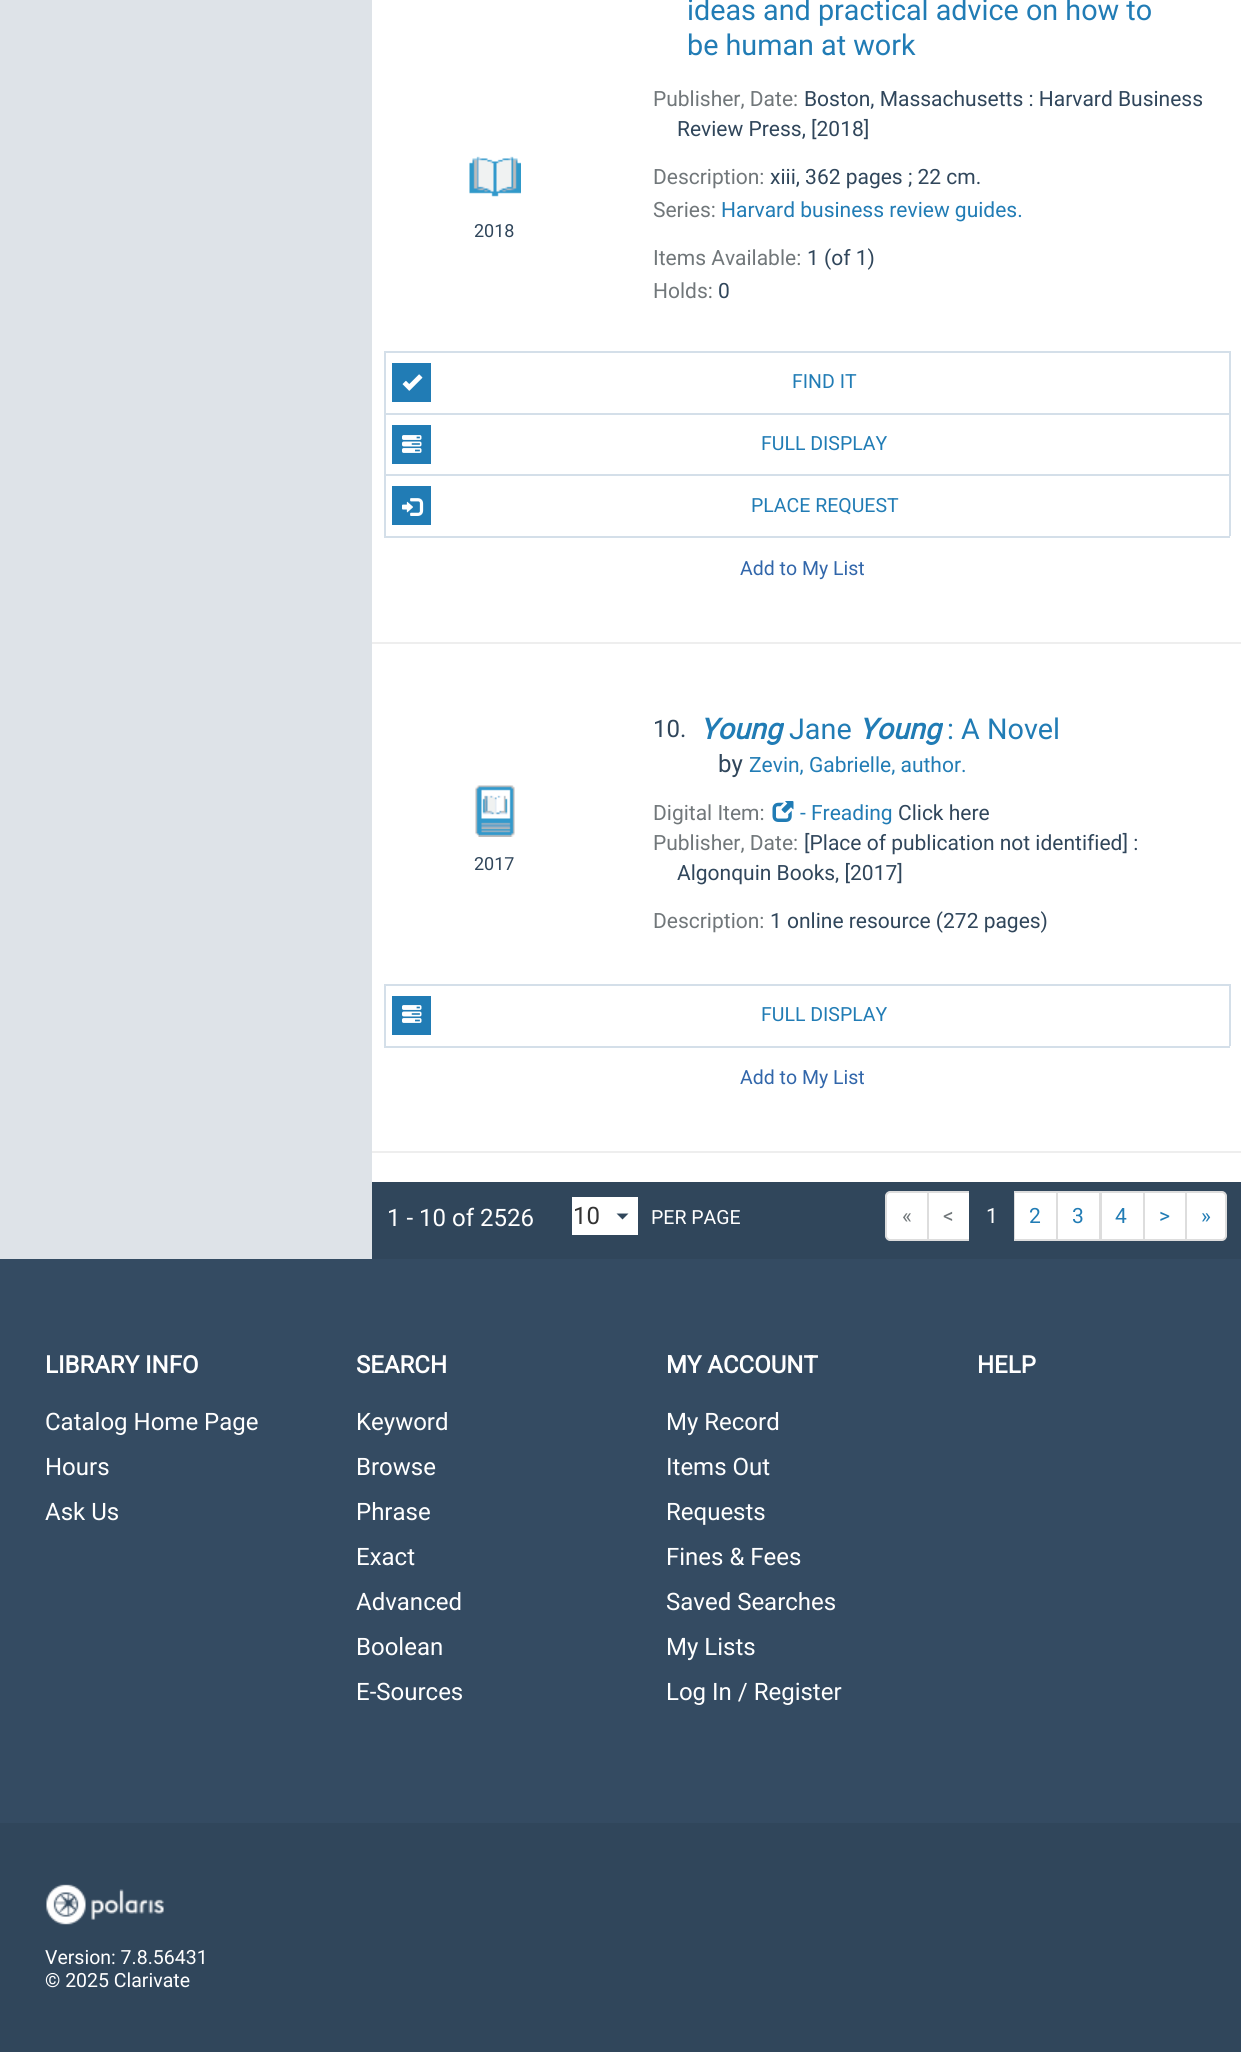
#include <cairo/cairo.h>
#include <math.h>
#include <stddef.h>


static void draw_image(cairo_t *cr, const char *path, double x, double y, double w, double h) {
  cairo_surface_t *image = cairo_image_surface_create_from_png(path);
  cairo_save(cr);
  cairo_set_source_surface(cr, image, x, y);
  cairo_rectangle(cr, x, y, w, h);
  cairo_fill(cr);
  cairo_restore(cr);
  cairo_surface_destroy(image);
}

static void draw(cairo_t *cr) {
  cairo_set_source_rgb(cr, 222 / 255.0, 227 / 255.0, 232 / 255.0);
  cairo_paint(cr);
  cairo_set_source_rgb(cr, 1, 1, 1);
  cairo_rectangle(cr, 372, 0, 869, 1182);
  cairo_fill(cr);
  draw_image(cr, "images/1.png", 469, 156, 52, 41);
  cairo_set_source_rgb(cr, 212 / 255.0, 223 / 255.0, 233 / 255.0);
  cairo_rectangle(cr, 384, 536, 846, 2);
  cairo_fill(cr);
  cairo_rectangle(cr, 384, 351, 846, 2);
  cairo_fill(cr);
  cairo_rectangle(cr, 1229, 351, 2, 62);
  cairo_fill(cr);
  cairo_rectangle(cr, 384, 351, 2, 62);
  cairo_fill(cr);
  cairo_set_source_rgb(cr, 33 / 255.0, 124 / 255.0, 181 / 255.0);
  cairo_rectangle(cr, 392, 363, 39, 39);
  cairo_fill(cr);
  draw_image(cr, "images/2.png", 402, 374, 21, 17);
  cairo_set_source_rgb(cr, 212 / 255.0, 223 / 255.0, 233 / 255.0);
  cairo_rectangle(cr, 384, 413, 846, 2);
  cairo_fill(cr);
  cairo_rectangle(cr, 1229, 413, 2, 61);
  cairo_fill(cr);
  cairo_rectangle(cr, 384, 413, 2, 61);
  cairo_fill(cr);
  cairo_set_source_rgb(cr, 33 / 255.0, 124 / 255.0, 181 / 255.0);
  cairo_rectangle(cr, 392, 425, 39, 39);
  cairo_fill(cr);
  draw_image(cr, "images/3.png", 402, 435, 20, 18);
  cairo_set_source_rgb(cr, 212 / 255.0, 223 / 255.0, 233 / 255.0);
  cairo_rectangle(cr, 384, 474, 846, 2);
  cairo_fill(cr);
  cairo_rectangle(cr, 1229, 474, 2, 62);
  cairo_fill(cr);
  cairo_rectangle(cr, 384, 474, 2, 62);
  cairo_fill(cr);
  cairo_set_source_rgb(cr, 33 / 255.0, 124 / 255.0, 181 / 255.0);
  cairo_rectangle(cr, 392, 486, 39, 39);
  cairo_fill(cr);
  draw_image(cr, "images/4.png", 402, 498, 22, 18);
  cairo_set_source_rgb(cr, 238 / 255.0, 238 / 255.0, 238 / 255.0);
  cairo_rectangle(cr, 372, 642, 869, 2);
  cairo_fill(cr);
  draw_image(cr, "images/5.png", 475, 785, 40, 52);
  draw_image(cr, "images/6.png", 772, 801, 22, 21);
  cairo_set_source_rgb(cr, 212 / 255.0, 223 / 255.0, 233 / 255.0);
  cairo_rectangle(cr, 384, 1046, 846, 2);
  cairo_fill(cr);
  cairo_rectangle(cr, 384, 984, 846, 2);
  cairo_fill(cr);
  cairo_rectangle(cr, 1229, 984, 2, 62);
  cairo_fill(cr);
  cairo_rectangle(cr, 384, 984, 2, 62);
  cairo_fill(cr);
  cairo_set_source_rgb(cr, 33 / 255.0, 124 / 255.0, 181 / 255.0);
  cairo_rectangle(cr, 392, 996, 39, 39);
  cairo_fill(cr);
  draw_image(cr, "images/3.png", 402, 1005, 20, 18);
  cairo_set_source_rgb(cr, 238 / 255.0, 238 / 255.0, 238 / 255.0);
  cairo_rectangle(cr, 372, 1151, 869, 2);
  cairo_fill(cr);
  cairo_set_source_rgb(cr, 48 / 255.0, 70 / 255.0, 91 / 255.0);
  cairo_rectangle(cr, 372, 1182, 869, 77);
  cairo_fill(cr);
  cairo_set_source_rgb(cr, 1, 1, 1);
  cairo_rectangle(cr, 572, 1197, 66, 38);
  cairo_fill(cr);
  cairo_set_source_rgb(cr, 48 / 255.0, 70 / 255.0, 91 / 255.0);
  cairo_new_path(cr);
  cairo_move_to(cr, 616.5, 1213.5);
  cairo_line_to(cr, 628.5, 1213.5);
  cairo_line_to(cr, 622.5, 1219.5);
  cairo_close_path(cr);
  cairo_fill(cr);
  cairo_set_source_rgb(cr, 1, 1, 1);
  cairo_new_path(cr);
  cairo_move_to(cr, 890, 1192);
  cairo_line_to(cr, 928, 1192);
  cairo_line_to(cr, 928, 1240);
  cairo_line_to(cr, 890, 1240);
  cairo_curve_to(cr, 888, 1240, 886, 1238, 886, 1236);
  cairo_line_to(cr, 886, 1196);
  cairo_curve_to(cr, 886, 1194, 888, 1192, 890, 1192);
  cairo_close_path(cr);
  cairo_fill_preserve(cr);
  cairo_set_source_rgb(cr, 221 / 255.0, 221 / 255.0, 221 / 255.0);
  cairo_stroke(cr);
  cairo_set_source_rgb(cr, 1, 1, 1);
  cairo_rectangle(cr, 928, 1192, 42, 48);
  cairo_fill_preserve(cr);
  cairo_set_source_rgb(cr, 221 / 255.0, 221 / 255.0, 221 / 255.0);
  cairo_stroke(cr);
  cairo_set_source_rgb(cr, 1, 1, 1);
  cairo_rectangle(cr, 1014, 1192, 43, 48);
  cairo_fill_preserve(cr);
  cairo_set_source_rgb(cr, 221 / 255.0, 221 / 255.0, 221 / 255.0);
  cairo_stroke(cr);
  cairo_set_source_rgb(cr, 48 / 255.0, 70 / 255.0, 91 / 255.0);
  cairo_rectangle(cr, 969, 1191, 45, 50);
  cairo_fill(cr);
  cairo_set_source_rgb(cr, 1, 1, 1);
  cairo_rectangle(cr, 1057, 1192, 43, 48);
  cairo_fill_preserve(cr);
  cairo_set_source_rgb(cr, 221 / 255.0, 221 / 255.0, 221 / 255.0);
  cairo_stroke(cr);
  cairo_set_source_rgb(cr, 1, 1, 1);
  cairo_rectangle(cr, 1101, 1192, 43, 48);
  cairo_fill_preserve(cr);
  cairo_set_source_rgb(cr, 221 / 255.0, 221 / 255.0, 221 / 255.0);
  cairo_stroke(cr);
  cairo_set_source_rgb(cr, 1, 1, 1);
  cairo_rectangle(cr, 1144, 1192, 42, 48);
  cairo_fill_preserve(cr);
  cairo_set_source_rgb(cr, 221 / 255.0, 221 / 255.0, 221 / 255.0);
  cairo_stroke(cr);
  cairo_set_source_rgb(cr, 1, 1, 1);
  cairo_new_path(cr);
  cairo_move_to(cr, 1186, 1192);
  cairo_line_to(cr, 1222, 1192);
  cairo_curve_to(cr, 1224, 1192, 1226, 1194, 1226, 1196);
  cairo_line_to(cr, 1226, 1236);
  cairo_curve_to(cr, 1226, 1238, 1224, 1240, 1222, 1240);
  cairo_line_to(cr, 1186, 1240);
  cairo_close_path(cr);
  cairo_fill_preserve(cr);
  cairo_set_source_rgb(cr, 221 / 255.0, 221 / 255.0, 221 / 255.0);
  cairo_stroke(cr);
  cairo_set_source_rgb(cr, 52 / 255.0, 75 / 255.0, 98 / 255.0);
  cairo_rectangle(cr, 0, 1259, 1241, 564);
  cairo_fill(cr);
  cairo_set_source_rgb(cr, 48 / 255.0, 70 / 255.0, 91 / 255.0);
  cairo_rectangle(cr, 0, 1823, 1241, 229);
  cairo_fill(cr);
  draw_image(cr, "images/7.png", 46, 1884, 118, 41);
  cairo_select_font_face(cr, "Roboto", CAIRO_FONT_SLANT_NORMAL, CAIRO_FONT_WEIGHT_NORMAL);
  cairo_set_font_size(cr, 18);
  cairo_move_to(cr, 474, 237);
  cairo_show_text(cr, "2018");
  cairo_set_font_size(cr, 28.75);
  cairo_set_source_rgb(cr, 33 / 255.0, 124 / 255.0, 181 / 255.0);
  cairo_move_to(cr, 687, 20);
  cairo_show_text(cr, "ideas and practical advice on how to");
  cairo_move_to(cr, 687, 55);
  cairo_show_text(cr, "be human at work");
  cairo_set_font_size(cr, 21);
  cairo_set_source_rgb(cr, 113 / 255.0, 119 / 255.0, 122 / 255.0);
  cairo_move_to(cr, 653, 106);
  cairo_show_text(cr, "Publisher, Date:");
  cairo_set_source_rgb(cr, 48 / 255.0, 70 / 255.0, 91 / 255.0);
  cairo_move_to(cr, 804, 106);
  cairo_show_text(cr, "Boston, Massachusetts : Harvard Business");
  cairo_move_to(cr, 677, 136);
  cairo_show_text(cr, "Review Press, [2018]");
  cairo_set_source_rgb(cr, 113 / 255.0, 119 / 255.0, 122 / 255.0);
  cairo_move_to(cr, 653, 184);
  cairo_show_text(cr, "Description:");
  cairo_set_source_rgb(cr, 48 / 255.0, 70 / 255.0, 91 / 255.0);
  cairo_move_to(cr, 770, 184);
  cairo_show_text(cr, "xiii, 362 pages ; 22 cm.");
  cairo_set_source_rgb(cr, 113 / 255.0, 119 / 255.0, 122 / 255.0);
  cairo_move_to(cr, 653, 217);
  cairo_show_text(cr, "Series:");
  cairo_set_source_rgb(cr, 33 / 255.0, 124 / 255.0, 181 / 255.0);
  cairo_move_to(cr, 721, 217);
  cairo_show_text(cr, "Harvard business review guides.");
  cairo_set_source_rgb(cr, 113 / 255.0, 119 / 255.0, 122 / 255.0);
  cairo_move_to(cr, 653, 265);
  cairo_show_text(cr, "Items Available:");
  cairo_set_source_rgb(cr, 48 / 255.0, 70 / 255.0, 91 / 255.0);
  cairo_move_to(cr, 807, 265);
  cairo_show_text(cr, "1 (of 1)");
  cairo_set_source_rgb(cr, 113 / 255.0, 119 / 255.0, 122 / 255.0);
  cairo_move_to(cr, 653, 298);
  cairo_show_text(cr, "Holds:");
  cairo_set_source_rgb(cr, 48 / 255.0, 70 / 255.0, 91 / 255.0);
  cairo_move_to(cr, 718, 298);
  cairo_show_text(cr, "0");
  cairo_set_font_size(cr, 19.5);
  cairo_set_source_rgb(cr, 33 / 255.0, 124 / 255.0, 181 / 255.0);
  cairo_move_to(cr, 792, 388);
  cairo_show_text(cr, "FIND IT");
  cairo_move_to(cr, 761, 450);
  cairo_show_text(cr, "FULL DISPLAY");
  cairo_move_to(cr, 751, 512);
  cairo_show_text(cr, "PLACE REQUEST");
  cairo_set_source_rgb(cr, 49 / 255.0, 102 / 255.0, 170 / 255.0);
  cairo_move_to(cr, 740, 575);
  cairo_show_text(cr, "Add to My List");
  cairo_set_font_size(cr, 18);
  cairo_set_source_rgb(cr, 48 / 255.0, 70 / 255.0, 91 / 255.0);
  cairo_move_to(cr, 474, 870);
  cairo_show_text(cr, "2017");
  cairo_set_font_size(cr, 24);
  cairo_move_to(cr, 653, 737);
  cairo_show_text(cr, "10.");
  cairo_select_font_face(cr, "Roboto", CAIRO_FONT_SLANT_ITALIC, CAIRO_FONT_WEIGHT_BOLD);
  cairo_set_font_size(cr, 28.75);
  cairo_set_source_rgb(cr, 33 / 255.0, 124 / 255.0, 181 / 255.0);
  cairo_move_to(cr, 700, 739);
  cairo_show_text(cr, "Young");
  cairo_select_font_face(cr, "Roboto", CAIRO_FONT_SLANT_NORMAL, CAIRO_FONT_WEIGHT_NORMAL);
  cairo_move_to(cr, 789, 739);
  cairo_show_text(cr, "Jane");
  cairo_select_font_face(cr, "Roboto", CAIRO_FONT_SLANT_ITALIC, CAIRO_FONT_WEIGHT_BOLD);
  cairo_move_to(cr, 859, 739);
  cairo_show_text(cr, "Young");
  cairo_select_font_face(cr, "Roboto", CAIRO_FONT_SLANT_NORMAL, CAIRO_FONT_WEIGHT_NORMAL);
  cairo_move_to(cr, 947, 739);
  cairo_show_text(cr, ": A Novel");
  cairo_set_font_size(cr, 24);
  cairo_set_source_rgb(cr, 48 / 255.0, 70 / 255.0, 91 / 255.0);
  cairo_move_to(cr, 718, 772);
  cairo_show_text(cr, "by");
  cairo_set_font_size(cr, 21);
  cairo_set_source_rgb(cr, 33 / 255.0, 124 / 255.0, 181 / 255.0);
  cairo_move_to(cr, 749, 772);
  cairo_show_text(cr, "Zevin, Gabrielle, author.");
  cairo_set_source_rgb(cr, 113 / 255.0, 119 / 255.0, 122 / 255.0);
  cairo_move_to(cr, 653, 820);
  cairo_show_text(cr, "Digital Item:");
  cairo_set_source_rgb(cr, 33 / 255.0, 124 / 255.0, 181 / 255.0);
  cairo_move_to(cr, 800, 820);
  cairo_show_text(cr, "- Freading");
  cairo_set_source_rgb(cr, 48 / 255.0, 70 / 255.0, 91 / 255.0);
  cairo_move_to(cr, 898, 820);
  cairo_show_text(cr, "Click here");
  cairo_set_source_rgb(cr, 113 / 255.0, 119 / 255.0, 122 / 255.0);
  cairo_move_to(cr, 653, 850);
  cairo_show_text(cr, "Publisher, Date:");
  cairo_set_source_rgb(cr, 48 / 255.0, 70 / 255.0, 91 / 255.0);
  cairo_move_to(cr, 804, 850);
  cairo_show_text(cr, "[Place of publication not identified] :");
  cairo_move_to(cr, 677, 880);
  cairo_show_text(cr, "Algonquin Books, [2017]");
  cairo_set_source_rgb(cr, 113 / 255.0, 119 / 255.0, 122 / 255.0);
  cairo_move_to(cr, 653, 928);
  cairo_show_text(cr, "Description:");
  cairo_set_source_rgb(cr, 48 / 255.0, 70 / 255.0, 91 / 255.0);
  cairo_move_to(cr, 770, 928);
  cairo_show_text(cr, "1 online resource (272 pages)");
  cairo_set_font_size(cr, 19.5);
  cairo_set_source_rgb(cr, 33 / 255.0, 124 / 255.0, 181 / 255.0);
  cairo_move_to(cr, 761, 1021);
  cairo_show_text(cr, "FULL DISPLAY");
  cairo_set_source_rgb(cr, 49 / 255.0, 102 / 255.0, 170 / 255.0);
  cairo_move_to(cr, 740, 1084);
  cairo_show_text(cr, "Add to My List");
  cairo_set_font_size(cr, 24);
  cairo_set_source_rgb(cr, 1, 1, 1);
  cairo_move_to(cr, 387, 1226);
  cairo_show_text(cr, "1 - 10 of 2526");
  cairo_set_source_rgb(cr, 51 / 255.0, 51 / 255.0, 51 / 255.0);
  cairo_move_to(cr, 573, 1224);
  cairo_show_text(cr, "10");
  cairo_set_font_size(cr, 19.5);
  cairo_set_source_rgb(cr, 1, 1, 1);
  cairo_move_to(cr, 651, 1224);
  cairo_show_text(cr, "PER PAGE");
  cairo_set_font_size(cr, 21);
  cairo_set_source_rgb(cr, 113 / 255.0, 119 / 255.0, 122 / 255.0);
  cairo_move_to(cr, 902, 1223);
  cairo_show_text(cr, "«");
  cairo_move_to(cr, 943, 1223);
  cairo_show_text(cr, "<");
  cairo_set_source_rgb(cr, 1, 1, 1);
  cairo_move_to(cr, 986, 1223);
  cairo_show_text(cr, "1");
  cairo_set_source_rgb(cr, 33 / 255.0, 124 / 255.0, 181 / 255.0);
  cairo_move_to(cr, 1029, 1223);
  cairo_show_text(cr, "2");
  cairo_move_to(cr, 1072, 1223);
  cairo_show_text(cr, "3");
  cairo_move_to(cr, 1115, 1223);
  cairo_show_text(cr, "4");
  cairo_move_to(cr, 1159, 1223);
  cairo_show_text(cr, ">");
  cairo_move_to(cr, 1201, 1223);
  cairo_show_text(cr, "»");
  cairo_select_font_face(cr, "Roboto", CAIRO_FONT_SLANT_NORMAL, CAIRO_FONT_WEIGHT_BOLD);
  cairo_set_font_size(cr, 24);
  cairo_set_source_rgb(cr, 1, 1, 1);
  cairo_move_to(cr, 45, 1373);
  cairo_show_text(cr, "LIBRARY INFO");
  cairo_select_font_face(cr, "Roboto", CAIRO_FONT_SLANT_NORMAL, CAIRO_FONT_WEIGHT_NORMAL);
  cairo_move_to(cr, 45, 1430);
  cairo_show_text(cr, "Catalog Home Page");
  cairo_move_to(cr, 45, 1475);
  cairo_show_text(cr, "Hours");
  cairo_move_to(cr, 45, 1520);
  cairo_show_text(cr, "Ask Us");
  cairo_select_font_face(cr, "Roboto", CAIRO_FONT_SLANT_NORMAL, CAIRO_FONT_WEIGHT_BOLD);
  cairo_move_to(cr, 356, 1373);
  cairo_show_text(cr, "SEARCH");
  cairo_select_font_face(cr, "Roboto", CAIRO_FONT_SLANT_NORMAL, CAIRO_FONT_WEIGHT_NORMAL);
  cairo_move_to(cr, 356, 1430);
  cairo_show_text(cr, "Keyword");
  cairo_move_to(cr, 356, 1475);
  cairo_show_text(cr, "Browse");
  cairo_move_to(cr, 356, 1520);
  cairo_show_text(cr, "Phrase");
  cairo_move_to(cr, 356, 1565);
  cairo_show_text(cr, "Exact");
  cairo_move_to(cr, 356, 1610);
  cairo_show_text(cr, "Advanced");
  cairo_move_to(cr, 356, 1655);
  cairo_show_text(cr, "Boolean");
  cairo_move_to(cr, 356, 1700);
  cairo_show_text(cr, "E-Sources");
  cairo_select_font_face(cr, "Roboto", CAIRO_FONT_SLANT_NORMAL, CAIRO_FONT_WEIGHT_BOLD);
  cairo_move_to(cr, 666, 1373);
  cairo_show_text(cr, "MY ACCOUNT");
  cairo_select_font_face(cr, "Roboto", CAIRO_FONT_SLANT_NORMAL, CAIRO_FONT_WEIGHT_NORMAL);
  cairo_move_to(cr, 666, 1430);
  cairo_show_text(cr, "My Record");
  cairo_move_to(cr, 666, 1475);
  cairo_show_text(cr, "Items Out");
  cairo_move_to(cr, 666, 1520);
  cairo_show_text(cr, "Requests");
  cairo_move_to(cr, 666, 1565);
  cairo_show_text(cr, "Fines & Fees");
  cairo_move_to(cr, 666, 1610);
  cairo_show_text(cr, "Saved Searches");
  cairo_move_to(cr, 666, 1655);
  cairo_show_text(cr, "My Lists");
  cairo_move_to(cr, 666, 1700);
  cairo_show_text(cr, "Log In / Register");
  cairo_select_font_face(cr, "Roboto", CAIRO_FONT_SLANT_NORMAL, CAIRO_FONT_WEIGHT_BOLD);
  cairo_move_to(cr, 977, 1373);
  cairo_show_text(cr, "HELP");
  cairo_select_font_face(cr, "Roboto", CAIRO_FONT_SLANT_NORMAL, CAIRO_FONT_WEIGHT_NORMAL);
  cairo_set_font_size(cr, 19.5);
  cairo_move_to(cr, 45, 1964);
  cairo_show_text(cr, "Version: 7.8.56431");
  cairo_move_to(cr, 45, 1987);
  cairo_show_text(cr, "© 2025 Clarivate");
}

int main(void) {
  cairo_surface_t *surface = cairo_image_surface_create(CAIRO_FORMAT_RGB24, 1241, 2052);
  cairo_t *cr = cairo_create(surface);
  cairo_font_options_t *options = cairo_font_options_create();
  cairo_font_options_set_hint_metrics(options, CAIRO_HINT_METRICS_OFF);
  cairo_font_options_set_hint_style(options, CAIRO_HINT_STYLE_NONE);
  cairo_set_font_options(cr, options);
  cairo_set_miter_limit(cr, 4);
  draw(cr);
  cairo_surface_write_to_png(surface, "out.png");
  cairo_font_options_destroy(options);
  cairo_destroy(cr);
  cairo_surface_destroy(surface);
  return 0;
}
